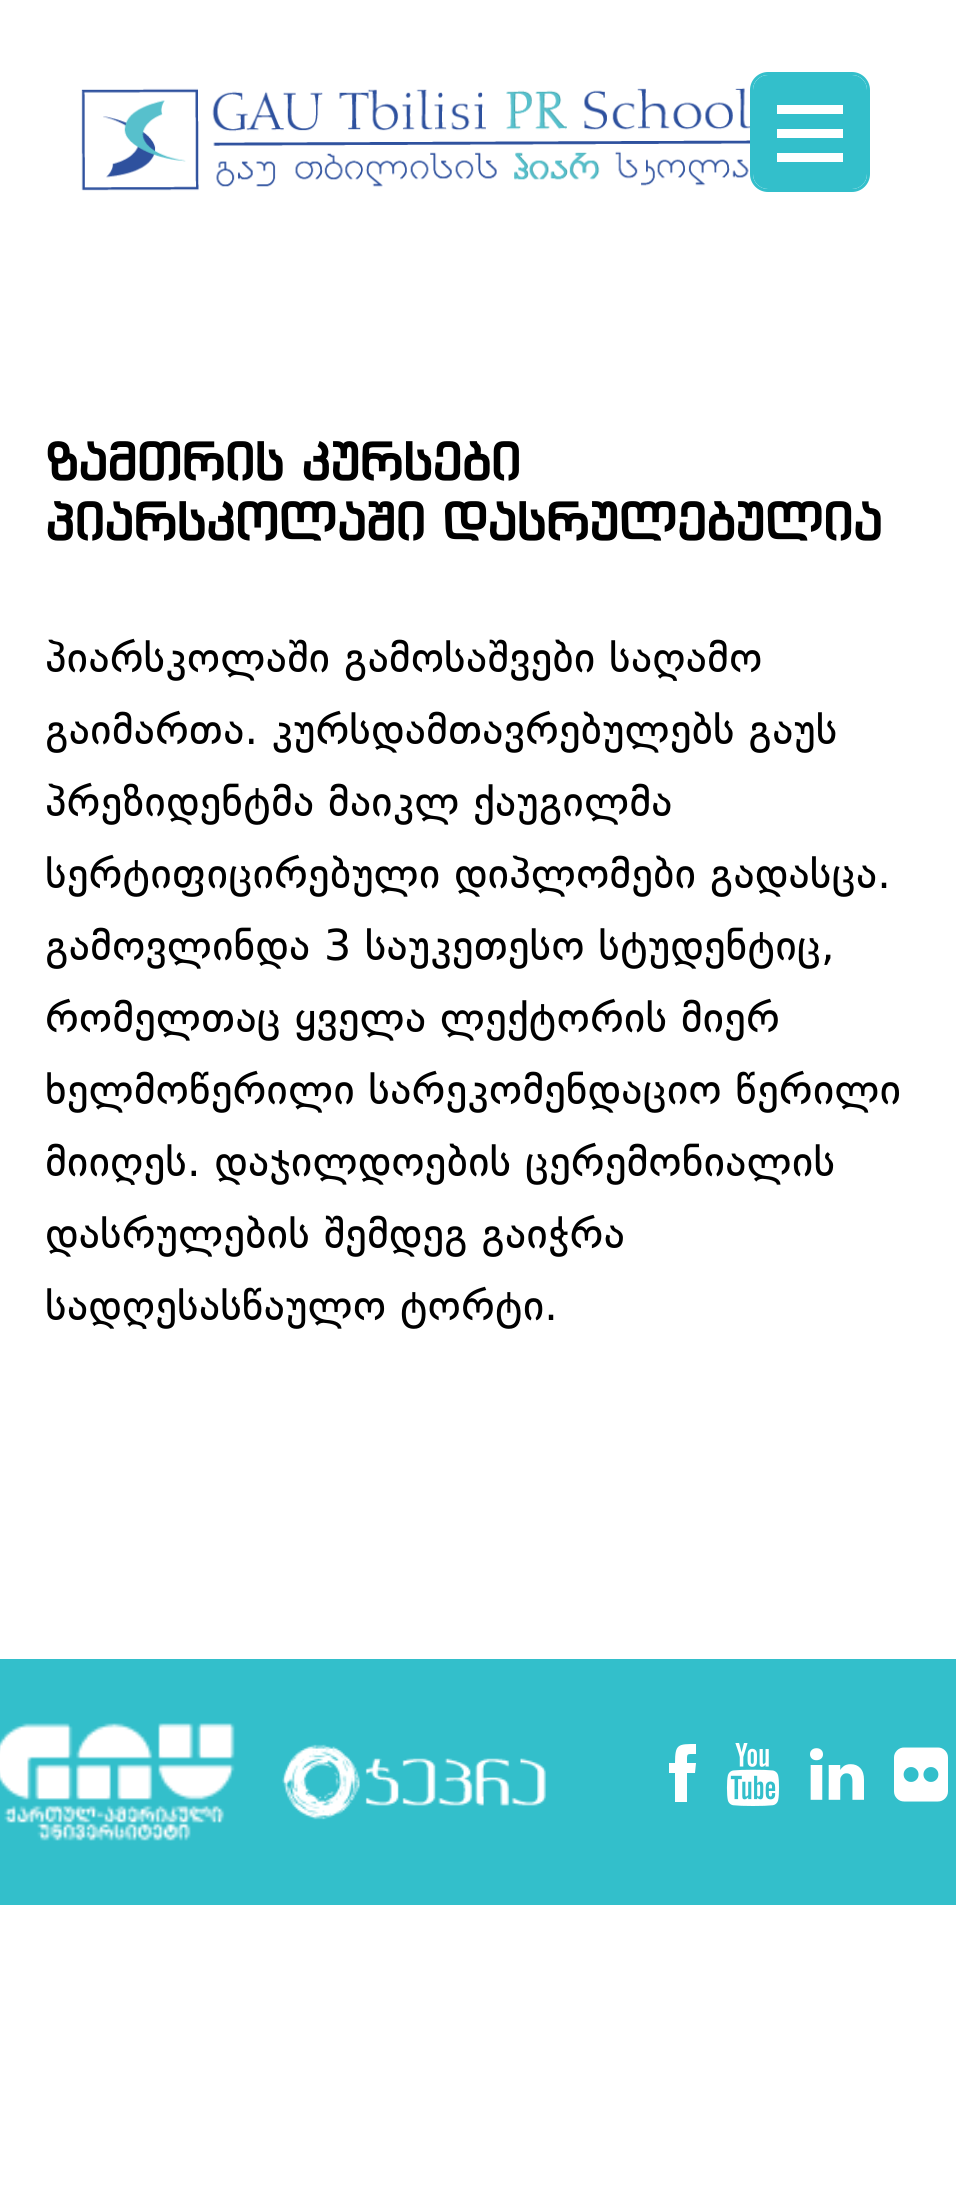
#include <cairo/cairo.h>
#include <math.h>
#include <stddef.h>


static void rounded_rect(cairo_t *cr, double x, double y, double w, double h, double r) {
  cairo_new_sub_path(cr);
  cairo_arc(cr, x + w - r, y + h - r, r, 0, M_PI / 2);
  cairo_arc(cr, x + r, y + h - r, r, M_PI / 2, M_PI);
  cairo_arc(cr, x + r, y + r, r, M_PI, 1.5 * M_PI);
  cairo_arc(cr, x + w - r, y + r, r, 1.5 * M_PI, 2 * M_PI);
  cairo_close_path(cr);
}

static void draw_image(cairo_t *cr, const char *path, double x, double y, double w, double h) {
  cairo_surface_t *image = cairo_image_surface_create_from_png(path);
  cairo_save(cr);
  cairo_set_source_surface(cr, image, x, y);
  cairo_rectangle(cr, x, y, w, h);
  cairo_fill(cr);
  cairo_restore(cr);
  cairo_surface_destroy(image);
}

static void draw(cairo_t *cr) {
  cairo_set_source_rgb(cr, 1, 1, 1);
  cairo_paint(cr);
  draw_image(cr, "images/1.png", 81, 87, 669, 104);
  rounded_rect(cr, 751.5, 73.5, 117, 117, 16.5);
  cairo_set_source_rgb(cr, 51 / 255.0, 191 / 255.0, 203 / 255.0);
  cairo_set_line_width(cr, 3);
  cairo_stroke(cr);
  rounded_rect(cr, 754.5, 76.5, 111, 111, 13.5);
  cairo_fill_preserve(cr);
  cairo_stroke(cr);
  cairo_set_source_rgb(cr, 1, 1, 1);
  cairo_rectangle(cr, 777, 129, 66, 9);
  cairo_fill(cr);
  cairo_rectangle(cr, 777, 105, 66, 9);
  cairo_fill(cr);
  cairo_rectangle(cr, 777, 153, 66, 9);
  cairo_fill(cr);
  cairo_set_source_rgb(cr, 51 / 255.0, 191 / 255.0, 203 / 255.0);
  cairo_rectangle(cr, 0, 1659, 956, 246);
  cairo_fill(cr);
  draw_image(cr, "images/2.png", 0, 1723, 235, 118);
  draw_image(cr, "images/3.png", 282, 1744, 264, 76);
  cairo_set_source_rgb(cr, 1, 1, 1);
  cairo_new_path(cr);
  cairo_move_to(cr, 687, 1763);
  cairo_line_to(cr, 696, 1763);
  cairo_line_to(cr, 695, 1773);
  cairo_line_to(cr, 687, 1773);
  cairo_line_to(cr, 687, 1802);
  cairo_line_to(cr, 675, 1802);
  cairo_line_to(cr, 675, 1773);
  cairo_line_to(cr, 669, 1773);
  cairo_line_to(cr, 669, 1763);
  cairo_line_to(cr, 675, 1763);
  cairo_curve_to(cr, 675, 1744, 678, 1744, 696, 1744);
  cairo_line_to(cr, 696, 1754);
  cairo_curve_to(cr, 686, 1754, 687, 1753, 687, 1763);
  cairo_close_path(cr);
  cairo_fill(cr);
  draw_image(cr, "images/4.png", 726, 1743, 54, 63);
  draw_image(cr, "images/5.png", 810, 1748, 54, 52);
  draw_image(cr, "images/6.png", 894, 1747, 54, 55);
  cairo_select_font_face(cr, "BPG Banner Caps", CAIRO_FONT_SLANT_NORMAL, CAIRO_FONT_WEIGHT_BOLD);
  cairo_set_font_size(cr, 51);
  cairo_set_source_rgb(cr, 0, 0, 0);
  cairo_move_to(cr, 45, 480);
  cairo_show_text(cr, "ზამთრის კურსები");
  cairo_move_to(cr, 45, 540);
  cairo_show_text(cr, "პიარსკოლაში დასრულებულია");
  cairo_select_font_face(cr, "DejaVu Sans", CAIRO_FONT_SLANT_NORMAL, CAIRO_FONT_WEIGHT_NORMAL);
  cairo_set_font_size(cr, 45);
  cairo_move_to(cr, 45, 672);
  cairo_show_text(cr, "პიარსკოლაში გამოსაშვები საღამო");
  cairo_move_to(cr, 45, 744);
  cairo_show_text(cr, "გაიმართა. კურსდამთავრებულებს გაუს");
  cairo_move_to(cr, 45, 816);
  cairo_show_text(cr, "პრეზიდენტმა მაიკლ ქაუგილმა");
  cairo_move_to(cr, 45, 888);
  cairo_show_text(cr, "სერტიფიცირებული დიპლომები გადასცა.");
  cairo_move_to(cr, 45, 960);
  cairo_show_text(cr, "გამოვლინდა 3 საუკეთესო სტუდენტიც,");
  cairo_move_to(cr, 45, 1032);
  cairo_show_text(cr, "რომელთაც ყველა ლექტორის მიერ");
  cairo_move_to(cr, 45, 1104);
  cairo_show_text(cr, "ხელმოწერილი სარეკომენდაციო წერილი");
  cairo_move_to(cr, 45, 1176);
  cairo_show_text(cr, "მიიღეს. დაჯილდოების ცერემონიალის");
  cairo_move_to(cr, 45, 1248);
  cairo_show_text(cr, "დასრულების შემდეგ გაიჭრა");
  cairo_move_to(cr, 45, 1320);
  cairo_show_text(cr, "სადღესასწაულო ტორტი.");
}

int main(void) {
  cairo_surface_t *surface = cairo_image_surface_create(CAIRO_FORMAT_RGB24, 956, 2193);
  cairo_t *cr = cairo_create(surface);
  cairo_font_options_t *options = cairo_font_options_create();
  cairo_font_options_set_hint_metrics(options, CAIRO_HINT_METRICS_OFF);
  cairo_font_options_set_hint_style(options, CAIRO_HINT_STYLE_NONE);
  cairo_set_font_options(cr, options);
  cairo_set_miter_limit(cr, 4);
  draw(cr);
  cairo_surface_write_to_png(surface, "out.png");
  cairo_font_options_destroy(options);
  cairo_destroy(cr);
  cairo_surface_destroy(surface);
  return 0;
}
